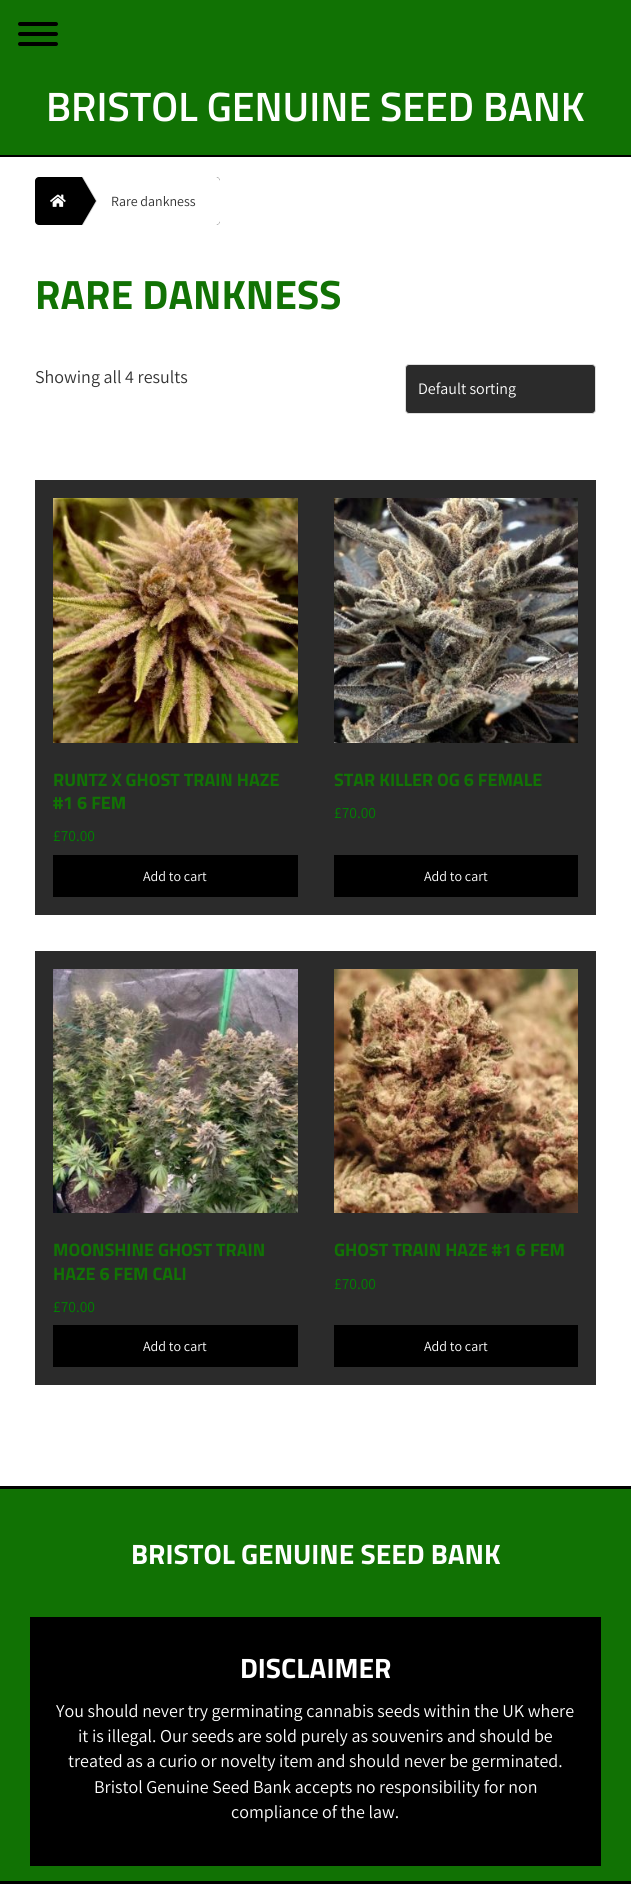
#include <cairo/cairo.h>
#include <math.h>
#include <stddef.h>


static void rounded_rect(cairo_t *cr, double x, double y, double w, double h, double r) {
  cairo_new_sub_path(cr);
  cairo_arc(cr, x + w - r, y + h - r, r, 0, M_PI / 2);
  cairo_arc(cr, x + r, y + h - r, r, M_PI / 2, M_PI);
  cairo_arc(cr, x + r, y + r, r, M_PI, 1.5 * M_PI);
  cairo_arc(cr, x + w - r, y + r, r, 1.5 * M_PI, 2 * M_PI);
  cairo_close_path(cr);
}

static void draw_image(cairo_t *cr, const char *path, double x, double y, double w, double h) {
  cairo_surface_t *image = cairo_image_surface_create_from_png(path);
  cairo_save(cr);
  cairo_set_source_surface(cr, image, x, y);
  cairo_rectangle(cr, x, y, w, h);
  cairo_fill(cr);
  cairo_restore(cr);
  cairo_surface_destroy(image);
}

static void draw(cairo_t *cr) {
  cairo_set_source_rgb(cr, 1, 1, 1);
  cairo_paint(cr);
  cairo_set_source_rgb(cr, 17 / 255.0, 114 / 255.0, 4 / 255.0);
  cairo_rectangle(cr, 0, 0, 631, 155);
  cairo_fill(cr);
  cairo_set_source_rgb(cr, 0, 0, 0);
  cairo_rectangle(cr, 0, 155, 631, 2);
  cairo_fill(cr);
  rounded_rect(cr, 18, 32, 40, 4, 2);
  cairo_fill(cr);
  rounded_rect(cr, 18, 22, 40, 4, 2);
  cairo_fill(cr);
  rounded_rect(cr, 18, 42, 40, 4, 2);
  cairo_fill(cr);
  rounded_rect(cr, 35, 177, 185, 48, 4);
  cairo_fill(cr);
  cairo_set_source_rgb(cr, 1, 1, 1);
  cairo_new_path(cr);
  cairo_move_to(cr, 66, 177);
  cairo_line_to(cr, 216, 177);
  cairo_curve_to(cr, 218, 177, 220, 179, 220, 181);
  cairo_line_to(cr, 220, 221);
  cairo_curve_to(cr, 220, 223, 218, 225, 216, 225);
  cairo_line_to(cr, 66, 225);
  cairo_close_path(cr);
  cairo_fill(cr);
  cairo_set_source_rgb(cr, 216 / 255.0, 216 / 255.0, 216 / 255.0);
  cairo_new_path(cr);
  cairo_move_to(cr, 83, 177);
  cairo_line_to(cr, 97, 201);
  cairo_line_to(cr, 83, 225);
  cairo_line_to(cr, 67, 225);
  cairo_line_to(cr, 67, 177);
  cairo_close_path(cr);
  cairo_fill(cr);
  cairo_set_source_rgb(cr, 0, 0, 0);
  cairo_new_path(cr);
  cairo_move_to(cr, 82, 177);
  cairo_line_to(cr, 96, 201);
  cairo_line_to(cr, 82, 225);
  cairo_line_to(cr, 66, 225);
  cairo_line_to(cr, 66, 177);
  cairo_close_path(cr);
  cairo_fill(cr);
  draw_image(cr, "images/1.png", 50, 194, 16, 13);
  cairo_set_source_rgb(cr, 43 / 255.0, 43 / 255.0, 43 / 255.0);
  rounded_rect(cr, 405.5, 364.5, 190, 49, 3.5);
  cairo_fill_preserve(cr);
  cairo_set_source_rgb(cr, 223 / 255.0, 223 / 255.0, 223 / 255.0);
  cairo_set_line_width(cr, 1);
  cairo_stroke(cr);
  cairo_set_source_rgb(cr, 43 / 255.0, 43 / 255.0, 43 / 255.0);
  cairo_rectangle(cr, 35, 480, 561, 435);
  cairo_fill(cr);
  draw_image(cr, "images/2.png", 53, 498, 245, 245);
  cairo_set_source_rgb(cr, 0, 0, 0);
  cairo_rectangle(cr, 53, 855, 245, 42);
  cairo_fill(cr);
  draw_image(cr, "images/3.png", 334, 498, 244, 245);
  cairo_rectangle(cr, 334, 855, 244, 42);
  cairo_fill(cr);
  cairo_set_source_rgb(cr, 43 / 255.0, 43 / 255.0, 43 / 255.0);
  cairo_rectangle(cr, 35, 951, 561, 434);
  cairo_fill(cr);
  draw_image(cr, "images/4.png", 53, 969, 245, 244);
  cairo_set_source_rgb(cr, 0, 0, 0);
  cairo_rectangle(cr, 53, 1325, 245, 42);
  cairo_fill(cr);
  draw_image(cr, "images/5.png", 334, 969, 244, 244);
  cairo_rectangle(cr, 334, 1325, 244, 42);
  cairo_fill(cr);
  cairo_set_source_rgb(cr, 17 / 255.0, 114 / 255.0, 4 / 255.0);
  cairo_rectangle(cr, 0, 1489, 631, 392);
  cairo_fill(cr);
  cairo_set_source_rgb(cr, 0, 0, 0);
  cairo_rectangle(cr, 0, 1486, 631, 3);
  cairo_fill(cr);
  cairo_rectangle(cr, 0, 1881, 631, 3);
  cairo_fill(cr);
  cairo_rectangle(cr, 30, 1617, 571, 249);
  cairo_fill(cr);
  cairo_select_font_face(cr, "Sunflower Medium", CAIRO_FONT_SLANT_NORMAL, CAIRO_FONT_WEIGHT_NORMAL);
  cairo_set_font_size(cr, 41);
  cairo_set_source_rgb(cr, 1, 1, 1);
  cairo_move_to(cr, 46, 121);
  cairo_show_text(cr, "BRISTOL GENUINE SEED BANK");
  cairo_select_font_face(cr, "Assistant", CAIRO_FONT_SLANT_NORMAL, CAIRO_FONT_WEIGHT_NORMAL);
  cairo_set_font_size(cr, 14);
  cairo_set_source_rgb(cr, 51 / 255.0, 51 / 255.0, 51 / 255.0);
  cairo_move_to(cr, 111, 206);
  cairo_show_text(cr, "Rare dankness");
  cairo_select_font_face(cr, "Sunflower", CAIRO_FONT_SLANT_NORMAL, CAIRO_FONT_WEIGHT_BOLD);
  cairo_set_font_size(cr, 41);
  cairo_set_source_rgb(cr, 17 / 255.0, 114 / 255.0, 4 / 255.0);
  cairo_move_to(cr, 35, 309);
  cairo_show_text(cr, "RARE DANKNESS");
  cairo_select_font_face(cr, "Assistant", CAIRO_FONT_SLANT_NORMAL, CAIRO_FONT_WEIGHT_NORMAL);
  cairo_set_font_size(cr, 18);
  cairo_set_source_rgb(cr, 51 / 255.0, 51 / 255.0, 51 / 255.0);
  cairo_move_to(cr, 35, 383);
  cairo_show_text(cr, "Showing all 4 results");
  cairo_set_font_size(cr, 16);
  cairo_set_source_rgb(cr, 1, 1, 1);
  cairo_move_to(cr, 418, 394);
  cairo_show_text(cr, "Default sorting");
  cairo_select_font_face(cr, "Sunflower", CAIRO_FONT_SLANT_NORMAL, CAIRO_FONT_WEIGHT_BOLD);
  cairo_set_font_size(cr, 18);
  cairo_set_source_rgb(cr, 17 / 255.0, 114 / 255.0, 4 / 255.0);
  cairo_move_to(cr, 53, 786);
  cairo_show_text(cr, "RUNTZ X GHOST TRAIN HAZE");
  cairo_move_to(cr, 53, 809);
  cairo_show_text(cr, "#1 6 FEM");
  cairo_select_font_face(cr, "Assistant", CAIRO_FONT_SLANT_NORMAL, CAIRO_FONT_WEIGHT_NORMAL);
  cairo_set_font_size(cr, 15.5);
  cairo_set_source_rgb(cr, 0, 128 / 255.0, 0);
  cairo_move_to(cr, 53, 841);
  cairo_show_text(cr, "£70.00");
  cairo_set_font_size(cr, 14);
  cairo_set_source_rgb(cr, 1, 1, 1);
  cairo_move_to(cr, 143, 881);
  cairo_show_text(cr, "Add to cart");
  cairo_select_font_face(cr, "Sunflower", CAIRO_FONT_SLANT_NORMAL, CAIRO_FONT_WEIGHT_BOLD);
  cairo_set_font_size(cr, 18);
  cairo_set_source_rgb(cr, 17 / 255.0, 114 / 255.0, 4 / 255.0);
  cairo_move_to(cr, 334, 786);
  cairo_show_text(cr, "STAR KILLER OG 6 FEMALE");
  cairo_select_font_face(cr, "Assistant", CAIRO_FONT_SLANT_NORMAL, CAIRO_FONT_WEIGHT_NORMAL);
  cairo_set_font_size(cr, 15.5);
  cairo_set_source_rgb(cr, 0, 128 / 255.0, 0);
  cairo_move_to(cr, 334, 818);
  cairo_show_text(cr, "£70.00");
  cairo_set_font_size(cr, 14);
  cairo_set_source_rgb(cr, 1, 1, 1);
  cairo_move_to(cr, 424, 881);
  cairo_show_text(cr, "Add to cart");
  cairo_select_font_face(cr, "Sunflower", CAIRO_FONT_SLANT_NORMAL, CAIRO_FONT_WEIGHT_BOLD);
  cairo_set_font_size(cr, 18);
  cairo_set_source_rgb(cr, 17 / 255.0, 114 / 255.0, 4 / 255.0);
  cairo_move_to(cr, 53, 1256);
  cairo_show_text(cr, "MOONSHINE GHOST TRAIN");
  cairo_move_to(cr, 53, 1280);
  cairo_show_text(cr, "HAZE 6 FEM CALI");
  cairo_select_font_face(cr, "Assistant", CAIRO_FONT_SLANT_NORMAL, CAIRO_FONT_WEIGHT_NORMAL);
  cairo_set_font_size(cr, 15.5);
  cairo_set_source_rgb(cr, 0, 128 / 255.0, 0);
  cairo_move_to(cr, 53, 1312);
  cairo_show_text(cr, "£70.00");
  cairo_set_font_size(cr, 14);
  cairo_set_source_rgb(cr, 1, 1, 1);
  cairo_move_to(cr, 143, 1351);
  cairo_show_text(cr, "Add to cart");
  cairo_select_font_face(cr, "Sunflower", CAIRO_FONT_SLANT_NORMAL, CAIRO_FONT_WEIGHT_BOLD);
  cairo_set_font_size(cr, 18);
  cairo_set_source_rgb(cr, 17 / 255.0, 114 / 255.0, 4 / 255.0);
  cairo_move_to(cr, 334, 1256);
  cairo_show_text(cr, "GHOST TRAIN HAZE #1 6 FEM");
  cairo_select_font_face(cr, "Assistant", CAIRO_FONT_SLANT_NORMAL, CAIRO_FONT_WEIGHT_NORMAL);
  cairo_set_font_size(cr, 15.5);
  cairo_set_source_rgb(cr, 0, 128 / 255.0, 0);
  cairo_move_to(cr, 334, 1289);
  cairo_show_text(cr, "£70.00");
  cairo_set_font_size(cr, 14);
  cairo_set_source_rgb(cr, 1, 1, 1);
  cairo_move_to(cr, 424, 1351);
  cairo_show_text(cr, "Add to cart");
  cairo_select_font_face(cr, "Sunflower", CAIRO_FONT_SLANT_NORMAL, CAIRO_FONT_WEIGHT_BOLD);
  cairo_set_font_size(cr, 28);
  cairo_move_to(cr, 131, 1564);
  cairo_show_text(cr, "BRISTOL GENUINE SEED BANK");
  cairo_move_to(cr, 240, 1678);
  cairo_show_text(cr, "DISCLAIMER");
  cairo_select_font_face(cr, "Assistant", CAIRO_FONT_SLANT_NORMAL, CAIRO_FONT_WEIGHT_NORMAL);
  cairo_set_font_size(cr, 18);
  cairo_move_to(cr, 56, 1717);
  cairo_show_text(cr, "You should never try germinating cannabis seeds within the UK where");
  cairo_move_to(cr, 78, 1742);
  cairo_show_text(cr, "it is illegal. Our seeds are sold purely as souvenirs and should be");
  cairo_move_to(cr, 68, 1767);
  cairo_show_text(cr, "treated as a curio or novelty item and should never be germinated.");
  cairo_move_to(cr, 94, 1793);
  cairo_show_text(cr, "Bristol Genuine Seed Bank accepts no responsibility for non");
  cairo_move_to(cr, 231, 1818);
  cairo_show_text(cr, "compliance of the law.");
}

int main(void) {
  cairo_surface_t *surface = cairo_image_surface_create(CAIRO_FORMAT_RGB24, 631, 1884);
  cairo_t *cr = cairo_create(surface);
  cairo_font_options_t *options = cairo_font_options_create();
  cairo_font_options_set_hint_metrics(options, CAIRO_HINT_METRICS_OFF);
  cairo_font_options_set_hint_style(options, CAIRO_HINT_STYLE_NONE);
  cairo_set_font_options(cr, options);
  cairo_set_miter_limit(cr, 4);
  draw(cr);
  cairo_surface_write_to_png(surface, "out.png");
  cairo_font_options_destroy(options);
  cairo_destroy(cr);
  cairo_surface_destroy(surface);
  return 0;
}
